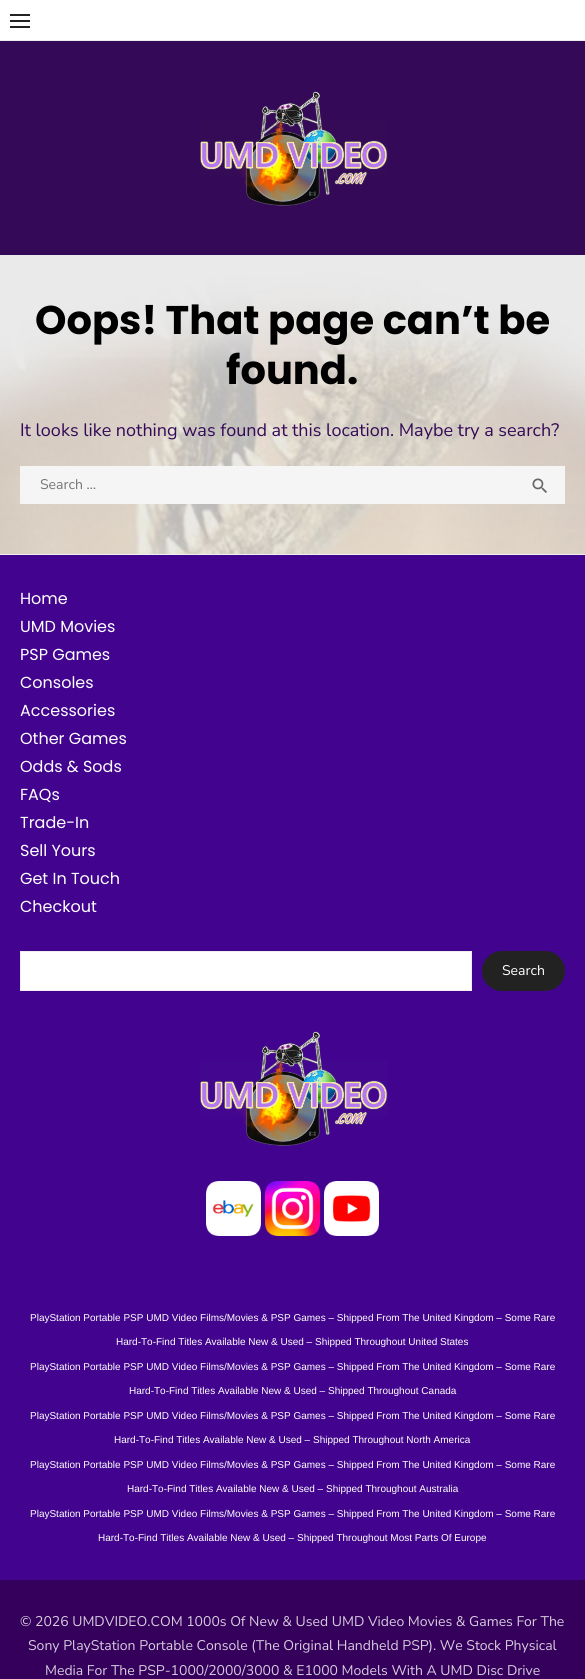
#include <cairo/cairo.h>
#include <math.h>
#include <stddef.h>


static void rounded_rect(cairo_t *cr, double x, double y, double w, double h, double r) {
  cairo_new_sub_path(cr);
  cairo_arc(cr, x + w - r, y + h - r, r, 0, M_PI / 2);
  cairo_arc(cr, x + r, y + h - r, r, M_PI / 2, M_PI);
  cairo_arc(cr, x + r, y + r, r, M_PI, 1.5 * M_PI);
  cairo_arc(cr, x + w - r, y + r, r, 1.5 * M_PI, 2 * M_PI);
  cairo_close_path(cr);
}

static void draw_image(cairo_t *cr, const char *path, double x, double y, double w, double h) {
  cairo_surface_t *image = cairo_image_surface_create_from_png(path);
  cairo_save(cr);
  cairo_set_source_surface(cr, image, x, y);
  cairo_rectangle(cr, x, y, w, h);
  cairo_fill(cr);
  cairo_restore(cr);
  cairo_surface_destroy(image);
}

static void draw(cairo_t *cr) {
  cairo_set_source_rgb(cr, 1, 1, 1);
  cairo_paint(cr);
  draw_image(cr, "images/1.png", 0, 255, 585, 299);
  cairo_set_source_rgb(cr, 237 / 255.0, 237 / 255.0, 237 / 255.0);
  cairo_rectangle(cr, 0, 40, 585, 1);
  cairo_fill(cr);
  cairo_set_source_rgb(cr, 34 / 255.0, 34 / 255.0, 34 / 255.0);
  cairo_rectangle(cr, 10, 20, 20, 2);
  cairo_fill(cr);
  cairo_rectangle(cr, 10, 14, 20, 2);
  cairo_fill(cr);
  cairo_rectangle(cr, 10, 26, 20, 2);
  cairo_fill(cr);
  cairo_set_source_rgb(cr, 52 / 255.0, 9 / 255.0, 87 / 255.0);
  cairo_rectangle(cr, 0, 41, 585, 214);
  cairo_fill(cr);
  draw_image(cr, "images/2.png", 200, 91, 188, 115);
  cairo_set_source_rgb(cr, 245 / 255.0, 245 / 255.0, 245 / 255.0);
  cairo_rectangle(cr, 20, 466, 545, 38);
  cairo_fill(cr);
  draw_image(cr, "images/3.png", 532, 478, 15, 15);
  cairo_set_source_rgb(cr, 52 / 255.0, 0, 91 / 255.0);
  cairo_rectangle(cr, 0, 1580, 585, 99);
  cairo_fill(cr);
  cairo_set_source_rgb(cr, 238 / 255.0, 238 / 255.0, 238 / 255.0);
  cairo_rectangle(cr, 0, 554, 585, 1);
  cairo_fill(cr);
  cairo_set_source_rgb(cr, 66 / 255.0, 4 / 255.0, 142 / 255.0);
  cairo_rectangle(cr, 0, 555, 585, 1025);
  cairo_fill(cr);
  cairo_set_source_rgb(cr, 1, 1, 1);
  cairo_rectangle(cr, 20.5, 951.5, 451, 39);
  cairo_fill_preserve(cr);
  cairo_set_source_rgb(cr, 238 / 255.0, 238 / 255.0, 238 / 255.0);
  cairo_set_line_width(cr, 1);
  cairo_stroke(cr);
  cairo_set_source_rgb(cr, 34 / 255.0, 34 / 255.0, 34 / 255.0);
  rounded_rect(cr, 482, 951, 83, 40, 20);
  cairo_fill(cr);
  draw_image(cr, "images/4.png", 200, 1031, 188, 115);
  draw_image(cr, "images/5.png", 206, 1181, 55, 55);
  draw_image(cr, "images/6.png", 265, 1181, 55, 55);
  draw_image(cr, "images/7.png", 324, 1181, 55, 55);
  cairo_select_font_face(cr, "Poppins", CAIRO_FONT_SLANT_NORMAL, CAIRO_FONT_WEIGHT_BOLD);
  cairo_set_font_size(cr, 40);
  cairo_set_source_rgb(cr, 0, 0, 0);
  cairo_move_to(cr, 35, 334);
  cairo_show_text(cr, "Oops! That page can’t be");
  cairo_move_to(cr, 226, 384);
  cairo_show_text(cr, "found.");
  cairo_select_font_face(cr, "Nunito Sans", CAIRO_FONT_SLANT_NORMAL, CAIRO_FONT_WEIGHT_NORMAL);
  cairo_set_font_size(cr, 18);
  cairo_set_source_rgb(cr, 52 / 255.0, 9 / 255.0, 87 / 255.0);
  cairo_move_to(cr, 20, 436);
  cairo_show_text(cr, "It looks like nothing was found at this location. Maybe try a search?");
  cairo_set_font_size(cr, 14);
  cairo_set_source_rgb(cr, 117 / 255.0, 117 / 255.0, 117 / 255.0);
  cairo_move_to(cr, 40, 489);
  cairo_show_text(cr, "Search …");
  cairo_select_font_face(cr, "Poppins", CAIRO_FONT_SLANT_NORMAL, CAIRO_FONT_WEIGHT_NORMAL);
  cairo_set_font_size(cr, 16);
  cairo_set_source_rgb(cr, 1, 1, 1);
  cairo_move_to(cr, 20, 604);
  cairo_show_text(cr, "Home");
  cairo_move_to(cr, 20, 632);
  cairo_show_text(cr, "UMD Movies");
  cairo_move_to(cr, 20, 660);
  cairo_show_text(cr, "PSP Games");
  cairo_move_to(cr, 20, 688);
  cairo_show_text(cr, "Consoles");
  cairo_move_to(cr, 20, 716);
  cairo_show_text(cr, "Accessories");
  cairo_move_to(cr, 20, 744);
  cairo_show_text(cr, "Other Games");
  cairo_move_to(cr, 20, 772);
  cairo_show_text(cr, "Odds & Sods");
  cairo_move_to(cr, 20, 800);
  cairo_show_text(cr, "FAQs");
  cairo_move_to(cr, 20, 828);
  cairo_show_text(cr, "Trade-In");
  cairo_move_to(cr, 20, 856);
  cairo_show_text(cr, "Sell Yours");
  cairo_move_to(cr, 20, 884);
  cairo_show_text(cr, "Get In Touch");
  cairo_move_to(cr, 20, 912);
  cairo_show_text(cr, "Checkout");
  cairo_select_font_face(cr, "Nunito Sans", CAIRO_FONT_SLANT_NORMAL, CAIRO_FONT_WEIGHT_NORMAL);
  cairo_set_font_size(cr, 14);
  cairo_move_to(cr, 502, 975);
  cairo_show_text(cr, "Search");
  cairo_select_font_face(cr, "Liberation Sans", CAIRO_FONT_SLANT_NORMAL, CAIRO_FONT_WEIGHT_NORMAL);
  cairo_set_font_size(cr, 10);
  cairo_move_to(cr, 30, 1321);
  cairo_show_text(cr, "PlayStation Portable PSP UMD Video Films/Movies & PSP Games – Shipped From The United Kingdom – Some Rare");
  cairo_move_to(cr, 116, 1345);
  cairo_show_text(cr, "Hard-To-Find Titles Available New & Used – Shipped Throughout United States");
  cairo_move_to(cr, 30, 1370);
  cairo_show_text(cr, "PlayStation Portable PSP UMD Video Films/Movies & PSP Games – Shipped From The United Kingdom – Some Rare");
  cairo_move_to(cr, 129, 1394);
  cairo_show_text(cr, "Hard-To-Find Titles Available New & Used – Shipped Throughout Canada");
  cairo_move_to(cr, 30, 1419);
  cairo_show_text(cr, "PlayStation Portable PSP UMD Video Films/Movies & PSP Games – Shipped From The United Kingdom – Some Rare");
  cairo_move_to(cr, 114, 1443);
  cairo_show_text(cr, "Hard-To-Find Titles Available New & Used – Shipped Throughout North America");
  cairo_move_to(cr, 30, 1468);
  cairo_show_text(cr, "PlayStation Portable PSP UMD Video Films/Movies & PSP Games – Shipped From The United Kingdom – Some Rare");
  cairo_move_to(cr, 127, 1492);
  cairo_show_text(cr, "Hard-To-Find Titles Available New & Used – Shipped Throughout Australia");
  cairo_move_to(cr, 30, 1517);
  cairo_show_text(cr, "PlayStation Portable PSP UMD Video Films/Movies & PSP Games – Shipped From The United Kingdom – Some Rare");
  cairo_move_to(cr, 98, 1541);
  cairo_show_text(cr, "Hard-To-Find Titles Available New & Used – Shipped Throughout Most Parts Of Europe");
  cairo_select_font_face(cr, "Nunito Sans", CAIRO_FONT_SLANT_NORMAL, CAIRO_FONT_WEIGHT_NORMAL);
  cairo_set_font_size(cr, 14);
  cairo_set_source_rgb(cr, 214 / 255.0, 204 / 255.0, 222 / 255.0);
  cairo_move_to(cr, 20, 1626);
  cairo_show_text(cr, "© 2026 UMDVIDEO.COM 1000s Of New & Used UMD Video Movies & Games For The");
  cairo_move_to(cr, 28, 1650);
  cairo_show_text(cr, "Sony PlayStation Portable Console (The Original Handheld PSP). We Stock Physical");
  cairo_move_to(cr, 45, 1675);
  cairo_show_text(cr, "Media For The PSP-1000/2000/3000 & E1000 Models With A UMD Disc Drive");
}

int main(void) {
  cairo_surface_t *surface = cairo_image_surface_create(CAIRO_FORMAT_RGB24, 585, 1679);
  cairo_t *cr = cairo_create(surface);
  cairo_font_options_t *options = cairo_font_options_create();
  cairo_font_options_set_hint_metrics(options, CAIRO_HINT_METRICS_OFF);
  cairo_font_options_set_hint_style(options, CAIRO_HINT_STYLE_NONE);
  cairo_set_font_options(cr, options);
  cairo_set_miter_limit(cr, 4);
  draw(cr);
  cairo_surface_write_to_png(surface, "out.png");
  cairo_font_options_destroy(options);
  cairo_destroy(cr);
  cairo_surface_destroy(surface);
  return 0;
}
